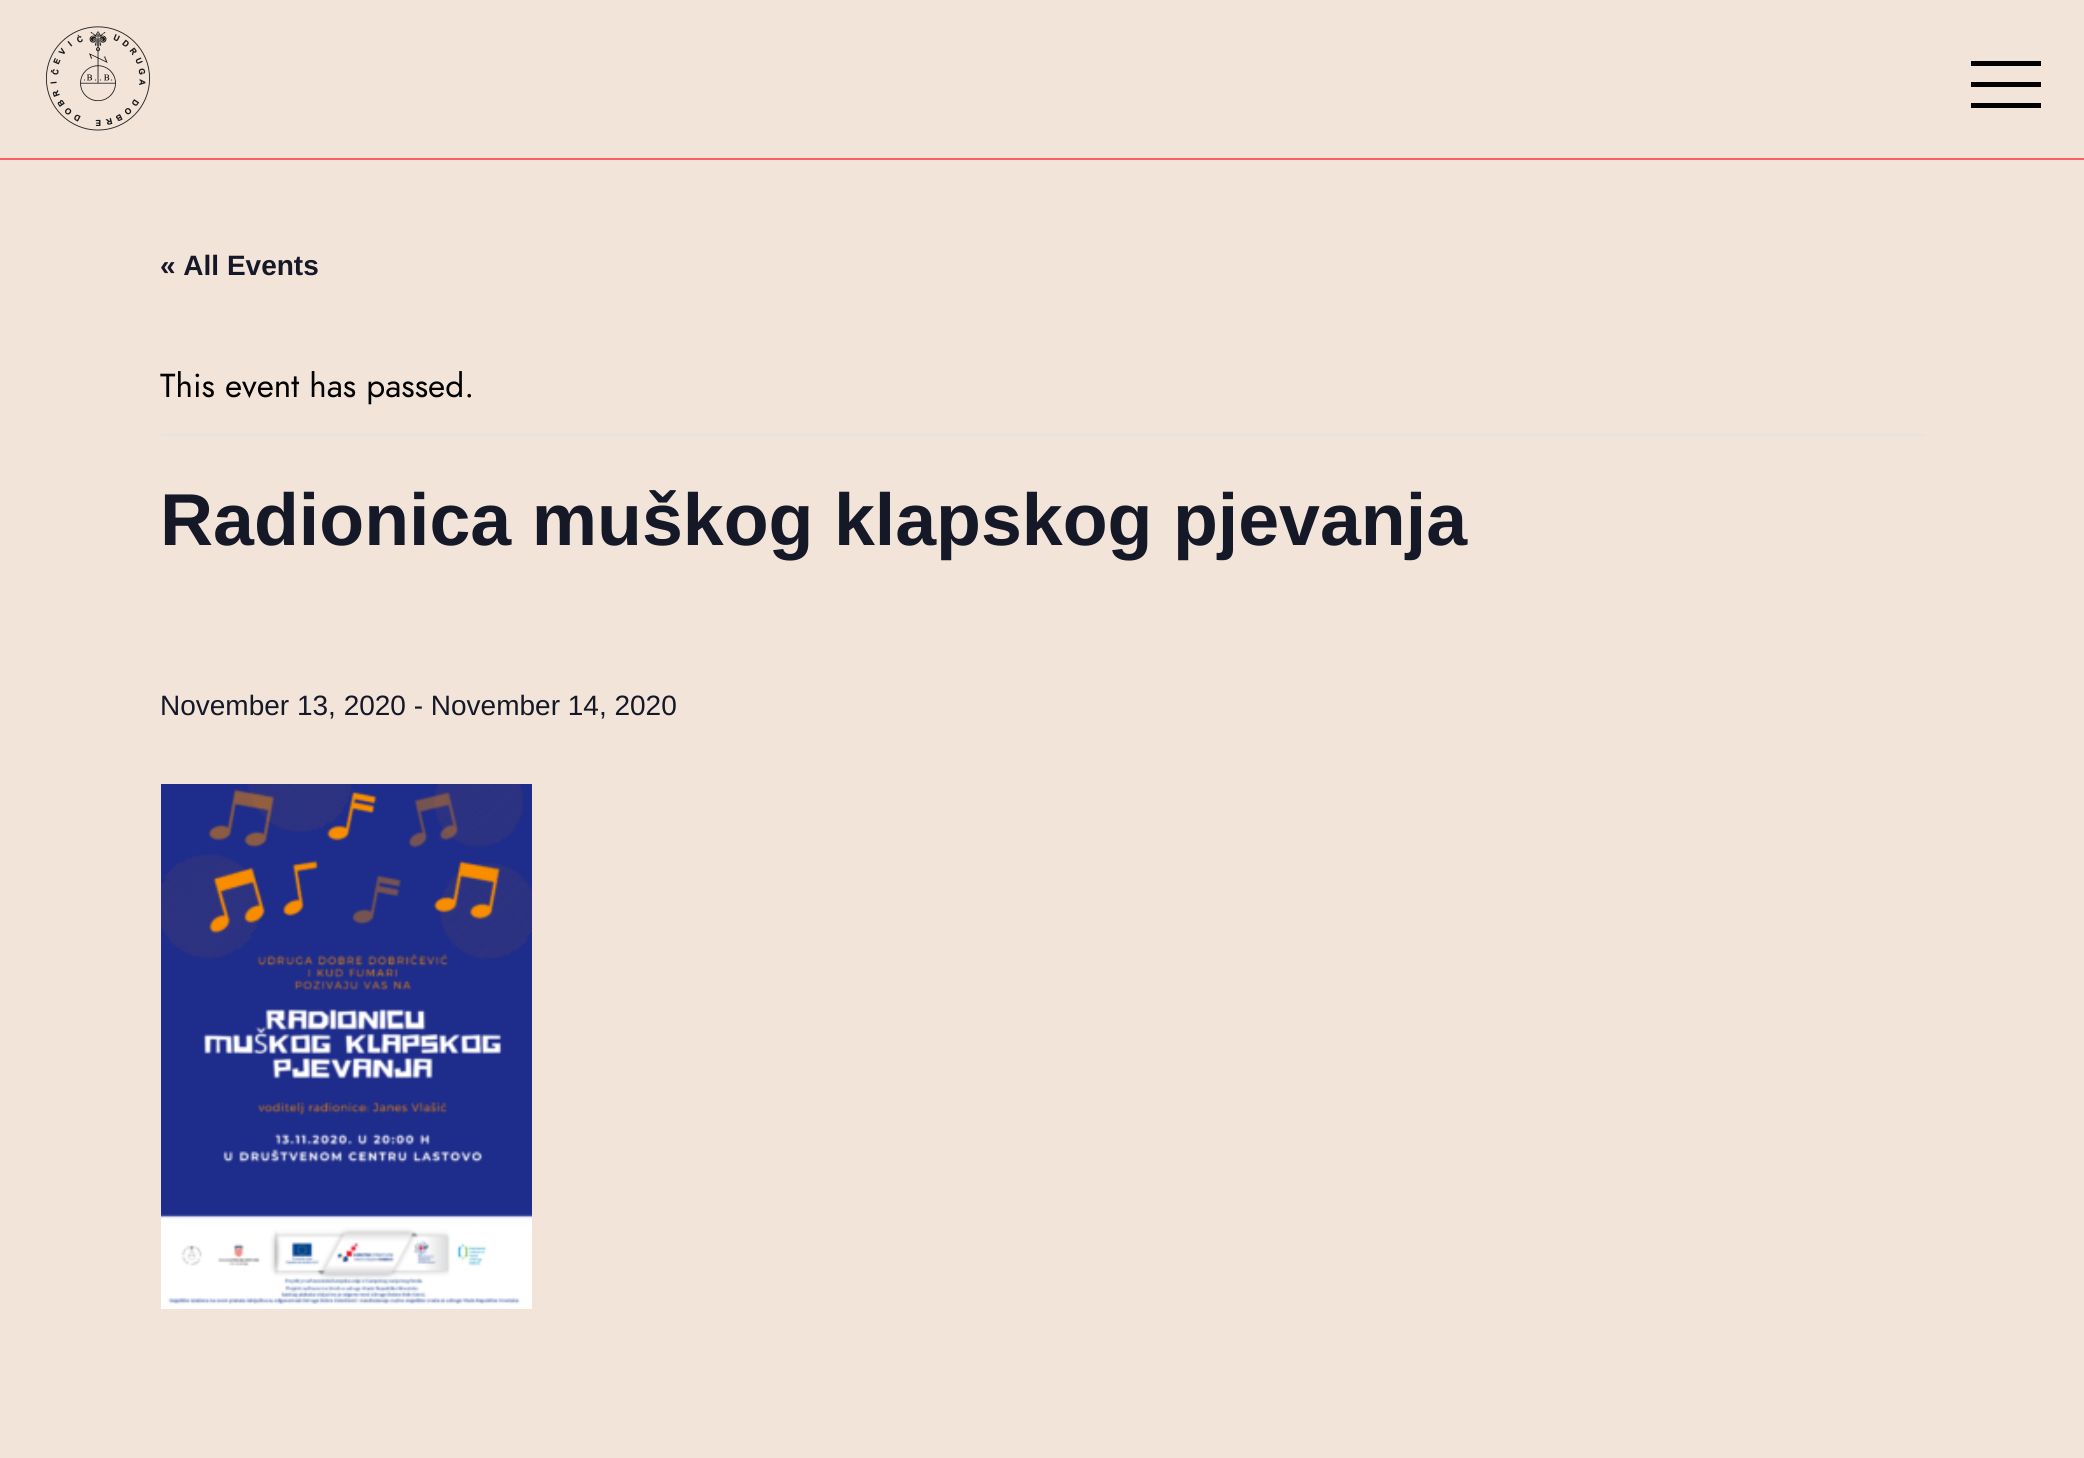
#include <cairo/cairo.h>
#include <math.h>
#include <stddef.h>


static void draw_image(cairo_t *cr, const char *path, double x, double y, double w, double h) {
  cairo_surface_t *image = cairo_image_surface_create_from_png(path);
  cairo_save(cr);
  cairo_set_source_surface(cr, image, x, y);
  cairo_rectangle(cr, x, y, w, h);
  cairo_fill(cr);
  cairo_restore(cr);
  cairo_surface_destroy(image);
}

static void draw(cairo_t *cr) {
  cairo_set_source_rgb(cr, 242 / 255.0, 228 / 255.0, 217 / 255.0);
  cairo_paint(cr);
  cairo_set_source_rgb(cr, 1, 97 / 255.0, 97 / 255.0);
  cairo_rectangle(cr, 0, 158, 2084, 2);
  cairo_fill(cr);
  draw_image(cr, "images/1.png", 46, 26, 105, 105);
  cairo_set_source_rgb(cr, 0, 0, 0);
  cairo_rectangle(cr, 1971, 61, 70, 5);
  cairo_fill(cr);
  cairo_rectangle(cr, 1971, 82, 70, 5);
  cairo_fill(cr);
  cairo_rectangle(cr, 1971, 103, 70, 5);
  cairo_fill(cr);
  cairo_set_source_rgb(cr, 228 / 255.0, 228 / 255.0, 228 / 255.0);
  cairo_rectangle(cr, 161, 434, 1764, 2);
  cairo_fill(cr);
  draw_image(cr, "images/2.png", 161, 784, 371, 525);
  cairo_select_font_face(cr, "Liberation Sans", CAIRO_FONT_SLANT_NORMAL, CAIRO_FONT_WEIGHT_BOLD);
  cairo_set_font_size(cr, 28);
  cairo_set_source_rgb(cr, 20 / 255.0, 24 / 255.0, 39 / 255.0);
  cairo_move_to(cr, 160, 275);
  cairo_show_text(cr, "« All Events");
  cairo_select_font_face(cr, "Jost", CAIRO_FONT_SLANT_NORMAL, CAIRO_FONT_WEIGHT_NORMAL);
  cairo_set_font_size(cr, 33.25);
  cairo_set_source_rgb(cr, 0, 0, 0);
  cairo_move_to(cr, 160, 397);
  cairo_show_text(cr, "This event has passed.");
  cairo_select_font_face(cr, "Liberation Sans", CAIRO_FONT_SLANT_NORMAL, CAIRO_FONT_WEIGHT_BOLD);
  cairo_set_font_size(cr, 73.5);
  cairo_set_source_rgb(cr, 20 / 255.0, 24 / 255.0, 39 / 255.0);
  cairo_move_to(cr, 160, 545);
  cairo_show_text(cr, "Radionica muškog klapskog pjevanja");
  cairo_select_font_face(cr, "Liberation Sans", CAIRO_FONT_SLANT_NORMAL, CAIRO_FONT_WEIGHT_NORMAL);
  cairo_set_font_size(cr, 28);
  cairo_move_to(cr, 160, 715);
  cairo_show_text(cr, "November 13, 2020 - November 14, 2020");
}

int main(void) {
  cairo_surface_t *surface = cairo_image_surface_create(CAIRO_FORMAT_RGB24, 2084, 1458);
  cairo_t *cr = cairo_create(surface);
  cairo_font_options_t *options = cairo_font_options_create();
  cairo_font_options_set_hint_metrics(options, CAIRO_HINT_METRICS_OFF);
  cairo_font_options_set_hint_style(options, CAIRO_HINT_STYLE_NONE);
  cairo_set_font_options(cr, options);
  cairo_set_miter_limit(cr, 4);
  draw(cr);
  cairo_surface_write_to_png(surface, "out.png");
  cairo_font_options_destroy(options);
  cairo_destroy(cr);
  cairo_surface_destroy(surface);
  return 0;
}
